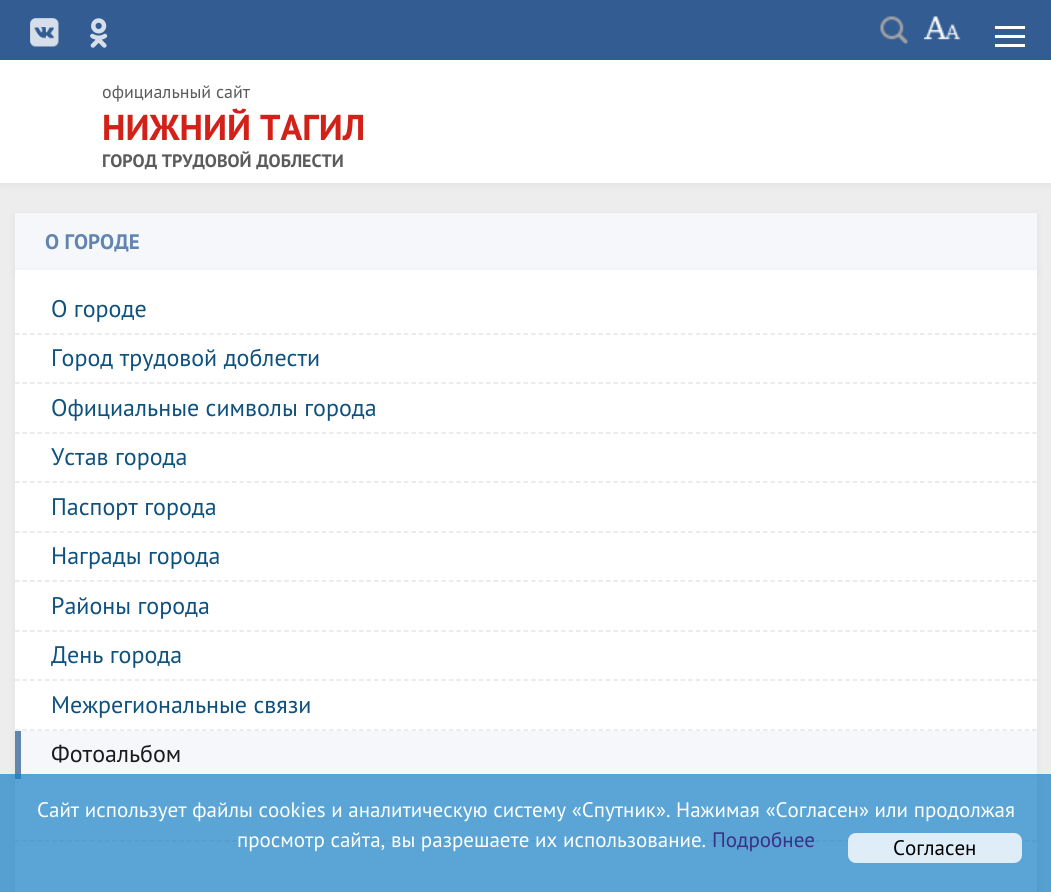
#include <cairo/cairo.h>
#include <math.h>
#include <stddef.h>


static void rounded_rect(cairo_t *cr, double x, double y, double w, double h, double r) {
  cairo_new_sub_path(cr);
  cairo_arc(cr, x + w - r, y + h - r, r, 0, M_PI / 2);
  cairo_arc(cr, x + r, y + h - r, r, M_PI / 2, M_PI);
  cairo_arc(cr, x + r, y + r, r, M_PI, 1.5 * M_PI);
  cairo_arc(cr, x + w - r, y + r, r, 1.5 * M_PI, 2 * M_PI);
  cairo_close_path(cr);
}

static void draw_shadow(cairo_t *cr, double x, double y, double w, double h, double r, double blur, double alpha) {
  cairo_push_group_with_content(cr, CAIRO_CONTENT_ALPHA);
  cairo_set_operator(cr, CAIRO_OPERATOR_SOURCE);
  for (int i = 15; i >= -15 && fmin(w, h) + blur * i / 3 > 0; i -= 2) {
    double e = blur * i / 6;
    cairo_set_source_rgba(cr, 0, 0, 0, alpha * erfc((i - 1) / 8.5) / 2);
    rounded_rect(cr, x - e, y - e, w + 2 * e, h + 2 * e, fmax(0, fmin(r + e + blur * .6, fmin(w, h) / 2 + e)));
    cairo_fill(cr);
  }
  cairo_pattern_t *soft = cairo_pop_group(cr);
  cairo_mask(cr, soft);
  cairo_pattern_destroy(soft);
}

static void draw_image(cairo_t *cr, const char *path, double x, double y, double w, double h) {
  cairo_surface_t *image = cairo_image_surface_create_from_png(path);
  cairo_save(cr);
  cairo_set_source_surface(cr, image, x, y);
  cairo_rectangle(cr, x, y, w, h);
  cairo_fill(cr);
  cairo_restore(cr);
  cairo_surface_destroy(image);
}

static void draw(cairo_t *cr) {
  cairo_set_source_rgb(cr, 237 / 255.0, 237 / 255.0, 237 / 255.0);
  cairo_paint(cr);
  cairo_set_source_rgb(cr, 50 / 255.0, 92 / 255.0, 146 / 255.0);
  cairo_rectangle(cr, 0, 0, 1051, 60);
  cairo_fill(cr);
  cairo_set_source_rgb(cr, 1, 1, 1);
  cairo_rectangle(cr, 995, 35, 30, 3);
  cairo_fill(cr);
  cairo_rectangle(cr, 995, 26, 30, 3);
  cairo_fill(cr);
  cairo_rectangle(cr, 995, 44, 30, 3);
  cairo_fill(cr);
  draw_image(cr, "images/1.png", 30, 18, 29, 29);
  draw_image(cr, "images/2.png", 90, 18, 18, 30);
  draw_image(cr, "images/3.png", 880, 16, 28, 28);
  draw_image(cr, "images/4.png", 924, 16, 37, 24);
  cairo_set_source_rgb(cr, 0, 0, 0);
  draw_shadow(cr, 0, 62, 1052, 123, 0, 4, 0.05);
  cairo_set_source_rgb(cr, 1, 1, 1);
  cairo_rectangle(cr, 0, 60, 1051, 123);
  cairo_fill(cr);
  cairo_set_source_rgb(cr, 0, 0, 0);
  draw_shadow(cr, 15, 215, 1022, 57, 0, 4, 0.05);
  cairo_set_source_rgb(cr, 245 / 255.0, 247 / 255.0, 250 / 255.0);
  cairo_rectangle(cr, 15, 213, 1022, 57);
  cairo_fill(cr);
  cairo_set_source_rgb(cr, 0, 0, 0);
  draw_shadow(cr, 15, 272, 1022, 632, 0, 4, 0.05);
  cairo_set_source_rgb(cr, 1, 1, 1);
  cairo_rectangle(cr, 15, 270, 1022, 622);
  cairo_fill(cr);
  cairo_new_path(cr);
  cairo_move_to(cr, 15, 334);
  cairo_line_to(cr, 1036.5, 334);
  cairo_set_source_rgb(cr, 229 / 255.0, 229 / 255.0, 229 / 255.0);
  cairo_set_line_width(cr, 1.5);
  cairo_set_dash(cr, (double[]){4.5, 2.98}, 2, 0);
  cairo_stroke(cr);
  cairo_new_path(cr);
  cairo_move_to(cr, 15, 383);
  cairo_line_to(cr, 1036.5, 383);
  cairo_stroke(cr);
  cairo_new_path(cr);
  cairo_move_to(cr, 15, 433);
  cairo_line_to(cr, 1036.5, 433);
  cairo_stroke(cr);
  cairo_new_path(cr);
  cairo_move_to(cr, 15, 482);
  cairo_line_to(cr, 1036.5, 482);
  cairo_stroke(cr);
  cairo_new_path(cr);
  cairo_move_to(cr, 15, 532);
  cairo_line_to(cr, 1036.5, 532);
  cairo_stroke(cr);
  cairo_new_path(cr);
  cairo_move_to(cr, 15, 581);
  cairo_line_to(cr, 1036.5, 581);
  cairo_stroke(cr);
  cairo_new_path(cr);
  cairo_move_to(cr, 15, 631);
  cairo_line_to(cr, 1036.5, 631);
  cairo_stroke(cr);
  cairo_new_path(cr);
  cairo_move_to(cr, 15, 680);
  cairo_line_to(cr, 1036.5, 680);
  cairo_stroke(cr);
  cairo_new_path(cr);
  cairo_move_to(cr, 15, 730);
  cairo_line_to(cr, 1036.5, 730);
  cairo_stroke(cr);
  cairo_set_source_rgb(cr, 245 / 255.0, 247 / 255.0, 250 / 255.0);
  cairo_rectangle(cr, 21, 731, 1016, 48);
  cairo_fill(cr);
  cairo_set_source_rgb(cr, 98 / 255.0, 133 / 255.0, 175 / 255.0);
  cairo_rectangle(cr, 15, 731, 6, 48);
  cairo_fill(cr);
  cairo_new_path(cr);
  cairo_move_to(cr, 15, 841);
  cairo_line_to(cr, 1036.5, 841);
  cairo_set_source_rgb(cr, 229 / 255.0, 229 / 255.0, 229 / 255.0);
  cairo_stroke(cr);
  cairo_set_source_rgba(cr, 21 / 255.0, 127 / 255.0, 196 / 255.0, 0.7);
  cairo_rectangle(cr, 0, 774, 1051, 118);
  cairo_fill(cr);
  cairo_set_source_rgba(cr, 1, 1, 1, 0.8);
  rounded_rect(cr, 848, 833, 174, 30, 8);
  cairo_fill(cr);
  cairo_select_font_face(cr, "PT Sans", CAIRO_FONT_SLANT_NORMAL, CAIRO_FONT_WEIGHT_NORMAL);
  cairo_set_font_size(cr, 18);
  cairo_set_source_rgb(cr, 91 / 255.0, 91 / 255.0, 91 / 255.0);
  cairo_move_to(cr, 102, 98);
  cairo_show_text(cr, "официальный сайт");
  cairo_select_font_face(cr, "PT Sans", CAIRO_FONT_SLANT_NORMAL, CAIRO_FONT_WEIGHT_BOLD);
  cairo_set_font_size(cr, 36);
  cairo_set_source_rgb(cr, 209 / 255.0, 33 / 255.0, 25 / 255.0);
  cairo_move_to(cr, 102, 140);
  cairo_show_text(cr, "НИЖНИЙ ТАГИЛ");
  cairo_set_font_size(cr, 18);
  cairo_set_source_rgb(cr, 91 / 255.0, 91 / 255.0, 91 / 255.0);
  cairo_move_to(cr, 102, 167);
  cairo_show_text(cr, "ГОРОД ТРУДОВОЙ ДОБЛЕСТИ");
  cairo_set_font_size(cr, 21);
  cairo_set_source_rgb(cr, 98 / 255.0, 133 / 255.0, 175 / 255.0);
  cairo_move_to(cr, 45, 249);
  cairo_show_text(cr, "О ГОРОДЕ");
  cairo_select_font_face(cr, "PT Sans", CAIRO_FONT_SLANT_NORMAL, CAIRO_FONT_WEIGHT_NORMAL);
  cairo_set_font_size(cr, 24);
  cairo_set_source_rgb(cr, 14 / 255.0, 81 / 255.0, 126 / 255.0);
  cairo_move_to(cr, 51, 317);
  cairo_show_text(cr, "О городе");
  cairo_move_to(cr, 51, 366);
  cairo_show_text(cr, "Город трудовой доблести");
  cairo_move_to(cr, 51, 416);
  cairo_show_text(cr, "Официальные символы города");
  cairo_move_to(cr, 51, 465);
  cairo_show_text(cr, "Устав города");
  cairo_move_to(cr, 51, 515);
  cairo_show_text(cr, "Паспорт города");
  cairo_move_to(cr, 51, 564);
  cairo_show_text(cr, "Награды города");
  cairo_move_to(cr, 51, 614);
  cairo_show_text(cr, "Районы города");
  cairo_move_to(cr, 51, 663);
  cairo_show_text(cr, "День города");
  cairo_move_to(cr, 51, 713);
  cairo_show_text(cr, "Межрегиональные связи");
  cairo_set_source_rgb(cr, 28 / 255.0, 28 / 255.0, 28 / 255.0);
  cairo_move_to(cr, 51, 762);
  cairo_show_text(cr, "Фотоальбом");
  cairo_set_font_size(cr, 21);
  cairo_set_source_rgb(cr, 1, 1, 1);
  cairo_move_to(cr, 37, 817);
  cairo_show_text(cr, "Сайт использует файлы cookies и аналитическую систему «Спутник». Нажимая «Согласен» или продолжая");
  cairo_move_to(cr, 237, 847);
  cairo_show_text(cr, "просмотр сайта, вы разрешаете их использование.");
  cairo_set_source_rgb(cr, 57 / 255.0, 49 / 255.0, 133 / 255.0);
  cairo_move_to(cr, 712, 847);
  cairo_show_text(cr, "Подробнее");
  cairo_set_source_rgb(cr, 0, 0, 0);
  cairo_move_to(cr, 893, 855);
  cairo_show_text(cr, "Согласен");
}

int main(void) {
  cairo_surface_t *surface = cairo_image_surface_create(CAIRO_FORMAT_RGB24, 1051, 892);
  cairo_t *cr = cairo_create(surface);
  cairo_font_options_t *options = cairo_font_options_create();
  cairo_font_options_set_hint_metrics(options, CAIRO_HINT_METRICS_OFF);
  cairo_font_options_set_hint_style(options, CAIRO_HINT_STYLE_NONE);
  cairo_set_font_options(cr, options);
  cairo_set_miter_limit(cr, 4);
  draw(cr);
  cairo_surface_write_to_png(surface, "out.png");
  cairo_font_options_destroy(options);
  cairo_destroy(cr);
  cairo_surface_destroy(surface);
  return 0;
}
